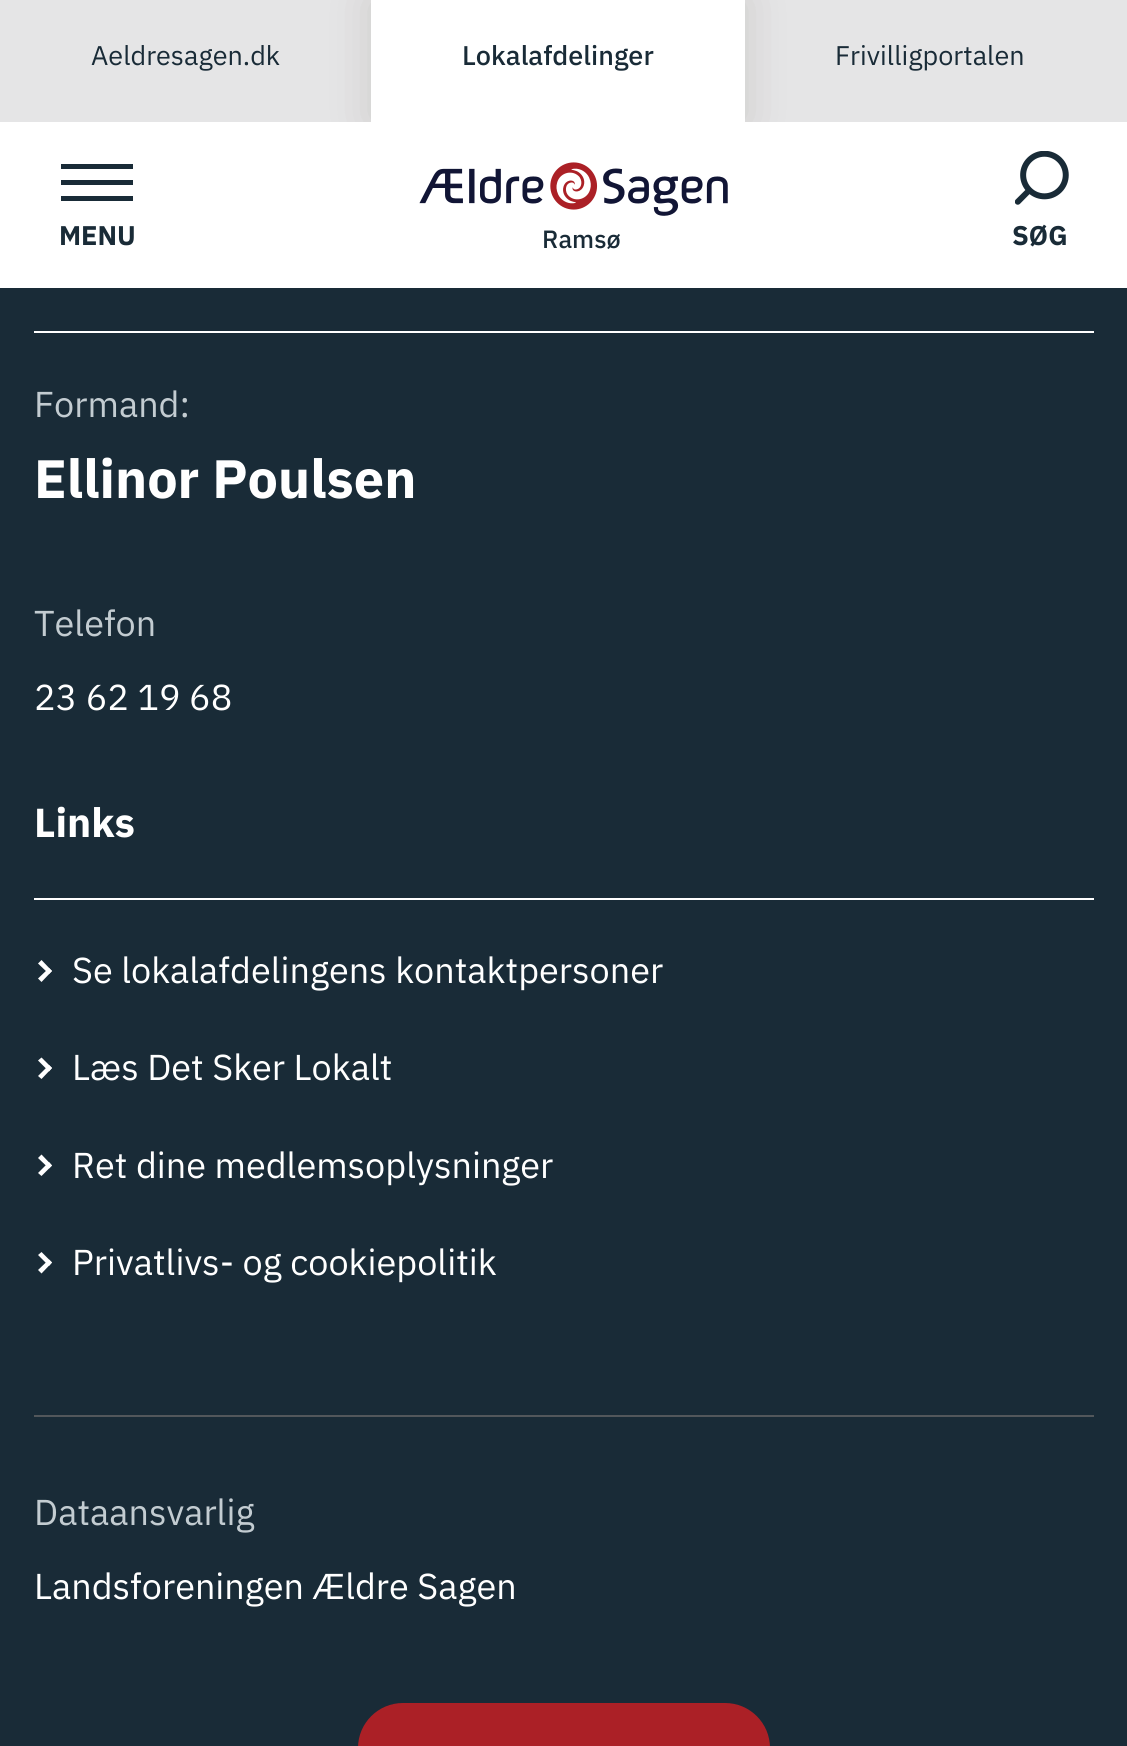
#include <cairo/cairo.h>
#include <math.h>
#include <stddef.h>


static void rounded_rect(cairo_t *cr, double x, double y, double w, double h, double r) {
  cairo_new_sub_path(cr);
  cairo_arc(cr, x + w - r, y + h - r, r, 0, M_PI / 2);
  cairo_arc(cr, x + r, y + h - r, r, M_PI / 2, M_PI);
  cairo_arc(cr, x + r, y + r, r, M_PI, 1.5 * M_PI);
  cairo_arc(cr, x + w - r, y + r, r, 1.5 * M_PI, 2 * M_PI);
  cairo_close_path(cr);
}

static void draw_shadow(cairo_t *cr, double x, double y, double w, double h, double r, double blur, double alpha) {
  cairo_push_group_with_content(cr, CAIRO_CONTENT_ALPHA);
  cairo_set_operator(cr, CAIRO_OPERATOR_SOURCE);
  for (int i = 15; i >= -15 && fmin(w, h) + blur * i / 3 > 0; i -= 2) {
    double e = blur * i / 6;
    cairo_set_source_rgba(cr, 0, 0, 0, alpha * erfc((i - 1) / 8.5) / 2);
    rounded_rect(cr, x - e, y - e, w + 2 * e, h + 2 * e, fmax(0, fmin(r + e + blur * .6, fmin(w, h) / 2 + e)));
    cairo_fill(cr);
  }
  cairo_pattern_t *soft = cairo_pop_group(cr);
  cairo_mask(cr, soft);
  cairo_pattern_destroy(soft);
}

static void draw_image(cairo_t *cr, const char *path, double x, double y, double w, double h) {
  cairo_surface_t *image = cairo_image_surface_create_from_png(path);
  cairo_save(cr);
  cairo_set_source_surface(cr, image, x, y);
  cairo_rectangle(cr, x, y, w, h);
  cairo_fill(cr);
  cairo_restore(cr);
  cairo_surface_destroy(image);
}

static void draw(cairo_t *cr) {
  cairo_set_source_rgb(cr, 25 / 255.0, 43 / 255.0, 55 / 255.0);
  cairo_paint(cr);
  cairo_set_source_rgb(cr, 229 / 255.0, 229 / 255.0, 230 / 255.0);
  cairo_rectangle(cr, 0, 0, 1127, 122);
  cairo_fill(cr);
  cairo_set_source_rgb(cr, 1, 1, 1);
  cairo_rectangle(cr, 0, 122, 1127, 166);
  cairo_fill(cr);
  cairo_save(cr);
  cairo_rectangle(cr, 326, 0, 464, 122);
  cairo_clip(cr);
  cairo_set_source_rgb(cr, 142 / 255.0, 138 / 255.0, 128 / 255.0);
  draw_shadow(cr, 371, 0, 374, 122, 0, 22.5, 0.3);
  cairo_restore(cr);
  cairo_rectangle(cr, 371, 0, 374, 122);
  cairo_fill(cr);
  cairo_set_source_rgb(cr, 25 / 255.0, 43 / 255.0, 55 / 255.0);
  cairo_rectangle(cr, 61, 164, 72, 5);
  cairo_fill(cr);
  cairo_rectangle(cr, 61, 180, 72, 5);
  cairo_fill(cr);
  cairo_rectangle(cr, 61, 196, 72, 5);
  cairo_fill(cr);
  draw_image(cr, "images/1.png", 419, 162, 309, 54);
  draw_image(cr, "images/2.png", 1015, 151, 54, 54);
  cairo_set_source_rgb(cr, 1, 1, 1);
  cairo_rectangle(cr, 34, 331, 1060, 2);
  cairo_fill(cr);
  cairo_rectangle(cr, 34, 898, 1060, 2);
  cairo_fill(cr);
  cairo_new_path(cr);
  cairo_move_to(cr, 38, 963.5);
  cairo_line_to(cr, 41.5, 960);
  cairo_line_to(cr, 52, 971);
  cairo_line_to(cr, 49, 974);
  cairo_close_path(cr);
  cairo_fill(cr);
  cairo_new_path(cr);
  cairo_move_to(cr, 38, 978.5);
  cairo_line_to(cr, 49, 968);
  cairo_line_to(cr, 52, 971);
  cairo_line_to(cr, 41.5, 982);
  cairo_close_path(cr);
  cairo_fill(cr);
  cairo_new_path(cr);
  cairo_move_to(cr, 38, 1060.5);
  cairo_line_to(cr, 41.5, 1057.5);
  cairo_line_to(cr, 52, 1068);
  cairo_line_to(cr, 49, 1071.5);
  cairo_close_path(cr);
  cairo_fill(cr);
  cairo_new_path(cr);
  cairo_move_to(cr, 38, 1076);
  cairo_line_to(cr, 49, 1065);
  cairo_line_to(cr, 52, 1068);
  cairo_line_to(cr, 41.5, 1079);
  cairo_close_path(cr);
  cairo_fill(cr);
  cairo_new_path(cr);
  cairo_move_to(cr, 38, 1158);
  cairo_line_to(cr, 41.5, 1154.5);
  cairo_line_to(cr, 52, 1165.5);
  cairo_line_to(cr, 49, 1168.5);
  cairo_close_path(cr);
  cairo_fill(cr);
  cairo_new_path(cr);
  cairo_move_to(cr, 38, 1173);
  cairo_line_to(cr, 49, 1162);
  cairo_line_to(cr, 52, 1165.5);
  cairo_line_to(cr, 41.5, 1176);
  cairo_close_path(cr);
  cairo_fill(cr);
  cairo_new_path(cr);
  cairo_move_to(cr, 38, 1255);
  cairo_line_to(cr, 41.5, 1252);
  cairo_line_to(cr, 52, 1262.5);
  cairo_line_to(cr, 49, 1266);
  cairo_close_path(cr);
  cairo_fill(cr);
  cairo_new_path(cr);
  cairo_move_to(cr, 38, 1270);
  cairo_line_to(cr, 49, 1259.5);
  cairo_line_to(cr, 52, 1262.5);
  cairo_line_to(cr, 41.5, 1273.5);
  cairo_close_path(cr);
  cairo_fill(cr);
  cairo_set_source_rgb(cr, 82 / 255.0, 87 / 255.0, 91 / 255.0);
  cairo_rectangle(cr, 34, 1415, 1060, 2);
  cairo_fill(cr);
  cairo_set_source_rgb(cr, 171 / 255.0, 32 / 255.0, 38 / 255.0);
  rounded_rect(cr, 358, 1703, 412, 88, 45);
  cairo_fill(cr);
  cairo_select_font_face(cr, "IBM Plex Sans", CAIRO_FONT_SLANT_NORMAL, CAIRO_FONT_WEIGHT_NORMAL);
  cairo_set_font_size(cr, 27);
  cairo_set_source_rgb(cr, 25 / 255.0, 43 / 255.0, 55 / 255.0);
  cairo_move_to(cr, 91, 65);
  cairo_show_text(cr, "Aeldresagen.dk");
  cairo_select_font_face(cr, "IBM Plex Sans Medium", CAIRO_FONT_SLANT_NORMAL, CAIRO_FONT_WEIGHT_NORMAL);
  cairo_move_to(cr, 462, 65);
  cairo_show_text(cr, "Lokalafdelinger");
  cairo_select_font_face(cr, "IBM Plex Sans", CAIRO_FONT_SLANT_NORMAL, CAIRO_FONT_WEIGHT_NORMAL);
  cairo_move_to(cr, 835, 65);
  cairo_show_text(cr, "Frivilligportalen");
  cairo_select_font_face(cr, "IBM Plex Sans", CAIRO_FONT_SLANT_NORMAL, CAIRO_FONT_WEIGHT_BOLD);
  cairo_move_to(cr, 59, 245);
  cairo_show_text(cr, "MENU");
  cairo_select_font_face(cr, "IBM Plex Sans Medium", CAIRO_FONT_SLANT_NORMAL, CAIRO_FONT_WEIGHT_NORMAL);
  cairo_set_font_size(cr, 25);
  cairo_move_to(cr, 542, 248);
  cairo_show_text(cr, "Ramsø");
  cairo_select_font_face(cr, "IBM Plex Sans", CAIRO_FONT_SLANT_NORMAL, CAIRO_FONT_WEIGHT_BOLD);
  cairo_set_font_size(cr, 27);
  cairo_move_to(cr, 1012, 245);
  cairo_show_text(cr, "SØG");
  cairo_select_font_face(cr, "IBM Plex Sans", CAIRO_FONT_SLANT_NORMAL, CAIRO_FONT_WEIGHT_NORMAL);
  cairo_set_font_size(cr, 36);
  cairo_set_source_rgb(cr, 195 / 255.0, 204 / 255.0, 209 / 255.0);
  cairo_move_to(cr, 34, 417);
  cairo_show_text(cr, "Formand:");
  cairo_select_font_face(cr, "IBM Plex Sans", CAIRO_FONT_SLANT_NORMAL, CAIRO_FONT_WEIGHT_BOLD);
  cairo_set_font_size(cr, 54);
  cairo_set_source_rgb(cr, 1, 1, 1);
  cairo_move_to(cr, 34, 498);
  cairo_show_text(cr, "Ellinor Poulsen");
  cairo_select_font_face(cr, "IBM Plex Sans", CAIRO_FONT_SLANT_NORMAL, CAIRO_FONT_WEIGHT_NORMAL);
  cairo_set_font_size(cr, 36);
  cairo_set_source_rgb(cr, 195 / 255.0, 204 / 255.0, 209 / 255.0);
  cairo_move_to(cr, 34, 636);
  cairo_show_text(cr, "Telefon");
  cairo_set_source_rgb(cr, 1, 1, 1);
  cairo_move_to(cr, 34, 710);
  cairo_show_text(cr, "23 62 19 68");
  cairo_select_font_face(cr, "IBM Plex Sans", CAIRO_FONT_SLANT_NORMAL, CAIRO_FONT_WEIGHT_BOLD);
  cairo_set_font_size(cr, 40.5);
  cairo_move_to(cr, 34, 837);
  cairo_show_text(cr, "Links");
  cairo_select_font_face(cr, "IBM Plex Sans", CAIRO_FONT_SLANT_NORMAL, CAIRO_FONT_WEIGHT_NORMAL);
  cairo_set_font_size(cr, 36);
  cairo_move_to(cr, 72, 983);
  cairo_show_text(cr, "Se lokalafdelingens kontaktpersoner");
  cairo_move_to(cr, 72, 1080);
  cairo_show_text(cr, "Læs Det Sker Lokalt");
  cairo_move_to(cr, 72, 1178);
  cairo_show_text(cr, "Ret dine medlemsoplysninger");
  cairo_move_to(cr, 72, 1275);
  cairo_show_text(cr, "Privatlivs- og cookiepolitik");
  cairo_set_source_rgb(cr, 195 / 255.0, 204 / 255.0, 209 / 255.0);
  cairo_move_to(cr, 34, 1525);
  cairo_show_text(cr, "Dataansvarlig");
  cairo_set_source_rgb(cr, 1, 1, 1);
  cairo_move_to(cr, 34, 1599);
  cairo_show_text(cr, "Landsforeningen Ældre Sagen");
}

int main(void) {
  cairo_surface_t *surface = cairo_image_surface_create(CAIRO_FORMAT_RGB24, 1127, 1746);
  cairo_t *cr = cairo_create(surface);
  cairo_font_options_t *options = cairo_font_options_create();
  cairo_font_options_set_hint_metrics(options, CAIRO_HINT_METRICS_OFF);
  cairo_font_options_set_hint_style(options, CAIRO_HINT_STYLE_NONE);
  cairo_set_font_options(cr, options);
  cairo_set_miter_limit(cr, 4);
  draw(cr);
  cairo_surface_write_to_png(surface, "out.png");
  cairo_font_options_destroy(options);
  cairo_destroy(cr);
  cairo_surface_destroy(surface);
  return 0;
}
